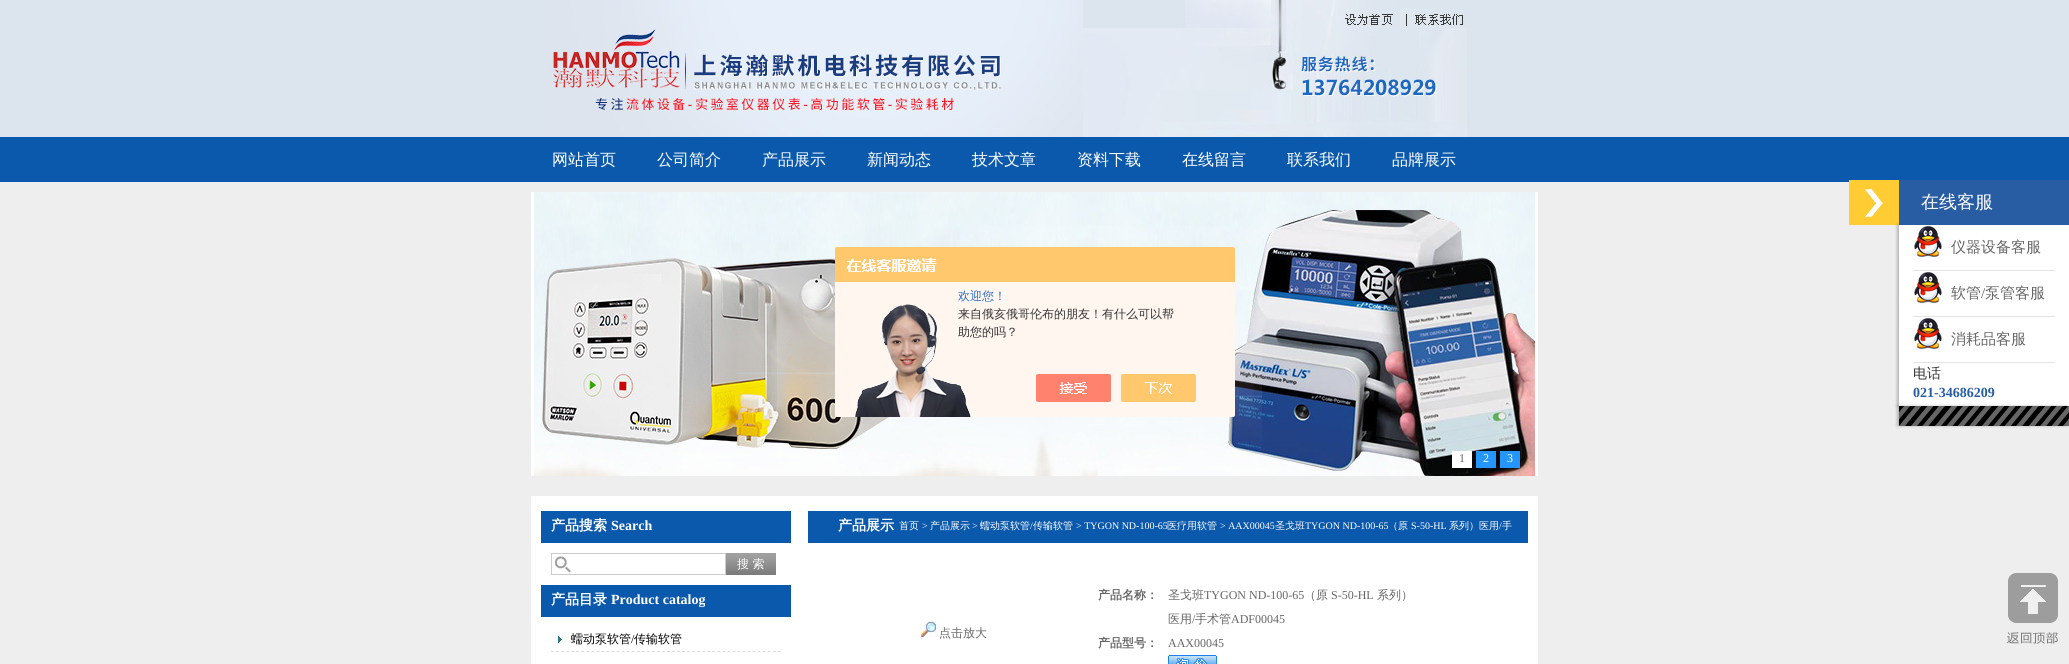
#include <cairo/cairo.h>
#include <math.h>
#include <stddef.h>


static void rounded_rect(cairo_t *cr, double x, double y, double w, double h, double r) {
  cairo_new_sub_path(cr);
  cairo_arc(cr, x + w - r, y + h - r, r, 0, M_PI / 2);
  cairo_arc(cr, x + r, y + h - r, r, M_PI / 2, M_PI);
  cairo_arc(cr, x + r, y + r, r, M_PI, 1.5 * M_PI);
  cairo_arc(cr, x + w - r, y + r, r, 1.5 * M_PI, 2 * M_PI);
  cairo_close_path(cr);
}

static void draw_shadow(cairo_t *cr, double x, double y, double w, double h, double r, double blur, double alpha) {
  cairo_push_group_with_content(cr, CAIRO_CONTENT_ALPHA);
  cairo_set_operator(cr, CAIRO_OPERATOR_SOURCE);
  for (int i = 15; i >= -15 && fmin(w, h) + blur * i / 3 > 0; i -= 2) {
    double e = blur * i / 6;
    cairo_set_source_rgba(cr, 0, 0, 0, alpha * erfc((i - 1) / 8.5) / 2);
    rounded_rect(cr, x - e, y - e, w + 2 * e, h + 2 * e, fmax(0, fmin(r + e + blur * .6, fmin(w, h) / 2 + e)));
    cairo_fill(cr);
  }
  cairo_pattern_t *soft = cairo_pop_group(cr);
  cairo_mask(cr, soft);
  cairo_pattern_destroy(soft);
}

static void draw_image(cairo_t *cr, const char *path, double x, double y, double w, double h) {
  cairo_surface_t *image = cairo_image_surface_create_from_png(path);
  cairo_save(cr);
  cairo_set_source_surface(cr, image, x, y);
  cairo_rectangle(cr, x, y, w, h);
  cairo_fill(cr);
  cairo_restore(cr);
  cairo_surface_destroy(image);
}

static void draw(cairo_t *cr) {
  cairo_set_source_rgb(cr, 220 / 255.0, 229 / 255.0, 238 / 255.0);
  cairo_paint(cr);
  draw_image(cr, "images/1.png", 547, 0, 536, 137);
  draw_image(cr, "images/2.png", 1185, 0, 160, 28);
  draw_image(cr, "images/3.png", 1345, 0, 48, 28);
  draw_image(cr, "images/4.png", 1400, 8, 63, 20);
  draw_image(cr, "images/5.png", 1083, 28, 384, 109);
  cairo_set_source_rgb(cr, 11 / 255.0, 89 / 255.0, 172 / 255.0);
  cairo_rectangle(cr, 0, 137, 2069, 45);
  cairo_fill(cr);
  cairo_set_source_rgb(cr, 238 / 255.0, 238 / 255.0, 238 / 255.0);
  cairo_rectangle(cr, 0, 182, 2069, 482);
  cairo_fill(cr);
  draw_image(cr, "images/6.png", 1849, 180, 50, 45);
  cairo_set_source_rgb(cr, 0, 0, 0);
  draw_shadow(cr, 1897, 225, 170, 181, 0, 1.5, 0.25);
  cairo_set_source_rgb(cr, 40 / 255.0, 93 / 255.0, 163 / 255.0);
  cairo_rectangle(cr, 1899, 180, 170, 45);
  cairo_fill(cr);
  cairo_set_source_rgb(cr, 1, 1, 1);
  cairo_rectangle(cr, 1899, 225, 170, 181);
  cairo_fill(cr);
  cairo_set_source_rgb(cr, 227 / 255.0, 227 / 255.0, 227 / 255.0);
  cairo_rectangle(cr, 1913, 270, 142, 1);
  cairo_fill(cr);
  draw_image(cr, "images/7.png", 1914, 226, 29, 33);
  cairo_rectangle(cr, 1913, 316, 142, 1);
  cairo_fill(cr);
  draw_image(cr, "images/7.png", 1914, 272, 29, 33);
  cairo_rectangle(cr, 1913, 362, 142, 1);
  cairo_fill(cr);
  draw_image(cr, "images/7.png", 1914, 318, 29, 33);
  cairo_set_source_rgb(cr, 0, 0, 0);
  draw_shadow(cr, 1897, 406, 170, 20, 0, 1.5, 0.25);
  draw_image(cr, "images/8.png", 1899, 406, 170, 20);
  draw_image(cr, "images/9.png", 2007, 573, 51, 71);
  cairo_set_source_rgb(cr, 1, 1, 1);
  cairo_rectangle(cr, 531, 192, 1007, 284);
  cairo_fill(cr);
  draw_image(cr, "images/10.png", 534, 192, 1001, 284);
  cairo_rectangle(cr, 1452, 451, 20, 17);
  cairo_fill(cr);
  cairo_set_source_rgb(cr, 38 / 255.0, 150 / 255.0, 1);
  cairo_rectangle(cr, 1476, 451, 20, 17);
  cairo_fill(cr);
  cairo_rectangle(cr, 1500, 451, 20, 17);
  cairo_fill(cr);
  cairo_set_source_rgb(cr, 1, 1, 1);
  cairo_rectangle(cr, 531, 496, 1007, 168);
  cairo_fill(cr);
  cairo_set_source_rgb(cr, 11 / 255.0, 89 / 255.0, 172 / 255.0);
  cairo_rectangle(cr, 541, 511, 250, 32);
  cairo_fill(cr);
  draw_image(cr, "images/11.png", 555, 554, 16, 20);
  cairo_rectangle(cr, 551.5, 553.5, 174, 21);
  cairo_set_source_rgb(cr, 204 / 255.0, 204 / 255.0, 204 / 255.0);
  cairo_set_line_width(cr, 1);
  cairo_stroke(cr);
  draw_image(cr, "images/12.png", 726, 553, 50, 22);
  cairo_set_source_rgb(cr, 11 / 255.0, 89 / 255.0, 172 / 255.0);
  cairo_rectangle(cr, 541, 585, 250, 32);
  cairo_fill(cr);
  draw_image(cr, "images/13.png", 554, 636, 8, 9);
  cairo_new_path(cr);
  cairo_move_to(cr, 551, 651.5);
  cairo_line_to(cr, 781, 651.5);
  cairo_set_source_rgb(cr, 221 / 255.0, 221 / 255.0, 221 / 255.0);
  cairo_set_dash(cr, (double[]){3, 2.04}, 2, 0);
  cairo_stroke(cr);
  cairo_set_source_rgb(cr, 11 / 255.0, 89 / 255.0, 172 / 255.0);
  cairo_rectangle(cr, 808, 511, 720, 32);
  cairo_fill(cr);
  draw_image(cr, "images/14.png", 920, 621, 16, 16);
  draw_image(cr, "images/15.png", 1168, 655, 49, 9);
  draw_image(cr, "images/16.png", 835, 247, 400, 170);
  cairo_select_font_face(cr, "WenQuanYi Zen Hei Medium", CAIRO_FONT_SLANT_NORMAL, CAIRO_FONT_WEIGHT_NORMAL);
  cairo_set_font_size(cr, 16);
  cairo_set_source_rgb(cr, 1, 1, 1);
  cairo_move_to(cr, 552, 165);
  cairo_show_text(cr, "网站首页");
  cairo_move_to(cr, 657, 165);
  cairo_show_text(cr, "公司简介");
  cairo_move_to(cr, 762, 165);
  cairo_show_text(cr, "产品展示");
  cairo_move_to(cr, 867, 165);
  cairo_show_text(cr, "新闻动态");
  cairo_move_to(cr, 972, 165);
  cairo_show_text(cr, "技术文章");
  cairo_move_to(cr, 1077, 165);
  cairo_show_text(cr, "资料下载");
  cairo_move_to(cr, 1182, 165);
  cairo_show_text(cr, "在线留言");
  cairo_move_to(cr, 1287, 165);
  cairo_show_text(cr, "联系我们");
  cairo_move_to(cr, 1392, 165);
  cairo_show_text(cr, "品牌展示");
  cairo_set_font_size(cr, 18);
  cairo_move_to(cr, 1921, 208);
  cairo_show_text(cr, "在线客服");
  cairo_set_font_size(cr, 15);
  cairo_set_source_rgb(cr, 102 / 255.0, 102 / 255.0, 102 / 255.0);
  cairo_move_to(cr, 1951, 252);
  cairo_show_text(cr, "仪器设备客服");
  cairo_move_to(cr, 1951, 298);
  cairo_show_text(cr, "软管");
  cairo_select_font_face(cr, "Liberation Serif", CAIRO_FONT_SLANT_NORMAL, CAIRO_FONT_WEIGHT_NORMAL);
  cairo_move_to(cr, 1981, 298);
  cairo_show_text(cr, "/");
  cairo_select_font_face(cr, "WenQuanYi Zen Hei Medium", CAIRO_FONT_SLANT_NORMAL, CAIRO_FONT_WEIGHT_NORMAL);
  cairo_move_to(cr, 1985, 298);
  cairo_show_text(cr, "泵管客服");
  cairo_move_to(cr, 1951, 344);
  cairo_show_text(cr, "消耗品客服");
  cairo_set_font_size(cr, 14);
  cairo_set_source_rgb(cr, 51 / 255.0, 51 / 255.0, 51 / 255.0);
  cairo_move_to(cr, 1913, 378);
  cairo_show_text(cr, "电话");
  cairo_select_font_face(cr, "Liberation Serif", CAIRO_FONT_SLANT_NORMAL, CAIRO_FONT_WEIGHT_BOLD);
  cairo_set_source_rgb(cr, 40 / 255.0, 93 / 255.0, 163 / 255.0);
  cairo_move_to(cr, 1913, 397);
  cairo_show_text(cr, "021-34686209");
  cairo_select_font_face(cr, "Liberation Serif", CAIRO_FONT_SLANT_NORMAL, CAIRO_FONT_WEIGHT_NORMAL);
  cairo_set_font_size(cr, 12);
  cairo_set_source_rgb(cr, 102 / 255.0, 102 / 255.0, 102 / 255.0);
  cairo_move_to(cr, 1459, 462);
  cairo_show_text(cr, "1");
  cairo_set_source_rgb(cr, 1, 1, 1);
  cairo_move_to(cr, 1483, 462);
  cairo_show_text(cr, "2");
  cairo_move_to(cr, 1507, 462);
  cairo_show_text(cr, "3");
  cairo_select_font_face(cr, "WenQuanYi Zen Hei", CAIRO_FONT_SLANT_NORMAL, CAIRO_FONT_WEIGHT_BOLD);
  cairo_set_font_size(cr, 14);
  cairo_move_to(cr, 551, 530);
  cairo_show_text(cr, "产品搜索");
  cairo_select_font_face(cr, "Liberation Serif", CAIRO_FONT_SLANT_NORMAL, CAIRO_FONT_WEIGHT_BOLD);
  cairo_move_to(cr, 611, 530);
  cairo_show_text(cr, "Search");
  cairo_select_font_face(cr, "WenQuanYi Zen Hei Medium", CAIRO_FONT_SLANT_NORMAL, CAIRO_FONT_WEIGHT_NORMAL);
  cairo_set_font_size(cr, 12);
  cairo_move_to(cr, 737, 568);
  cairo_show_text(cr, "搜 索");
  cairo_select_font_face(cr, "WenQuanYi Zen Hei", CAIRO_FONT_SLANT_NORMAL, CAIRO_FONT_WEIGHT_BOLD);
  cairo_set_font_size(cr, 14);
  cairo_move_to(cr, 551, 604);
  cairo_show_text(cr, "产品目录");
  cairo_select_font_face(cr, "Liberation Serif", CAIRO_FONT_SLANT_NORMAL, CAIRO_FONT_WEIGHT_BOLD);
  cairo_move_to(cr, 611, 604);
  cairo_show_text(cr, "Product catalog");
  cairo_select_font_face(cr, "WenQuanYi Zen Hei Medium", CAIRO_FONT_SLANT_NORMAL, CAIRO_FONT_WEIGHT_NORMAL);
  cairo_set_font_size(cr, 12);
  cairo_set_source_rgb(cr, 0, 0, 0);
  cairo_move_to(cr, 571, 643);
  cairo_show_text(cr, "蠕动泵软管");
  cairo_select_font_face(cr, "Liberation Serif", CAIRO_FONT_SLANT_NORMAL, CAIRO_FONT_WEIGHT_NORMAL);
  cairo_move_to(cr, 631, 643);
  cairo_show_text(cr, "/");
  cairo_select_font_face(cr, "WenQuanYi Zen Hei Medium", CAIRO_FONT_SLANT_NORMAL, CAIRO_FONT_WEIGHT_NORMAL);
  cairo_move_to(cr, 634, 643);
  cairo_show_text(cr, "传输软管");
  cairo_select_font_face(cr, "WenQuanYi Zen Hei", CAIRO_FONT_SLANT_NORMAL, CAIRO_FONT_WEIGHT_BOLD);
  cairo_set_font_size(cr, 14);
  cairo_set_source_rgb(cr, 1, 1, 1);
  cairo_move_to(cr, 838, 530);
  cairo_show_text(cr, "产品展示");
  cairo_select_font_face(cr, "WenQuanYi Zen Hei Medium", CAIRO_FONT_SLANT_NORMAL, CAIRO_FONT_WEIGHT_NORMAL);
  cairo_set_font_size(cr, 10);
  cairo_move_to(cr, 899, 529);
  cairo_show_text(cr, "首页");
  cairo_select_font_face(cr, "Liberation Serif", CAIRO_FONT_SLANT_NORMAL, CAIRO_FONT_WEIGHT_NORMAL);
  cairo_move_to(cr, 922, 529);
  cairo_show_text(cr, ">");
  cairo_select_font_face(cr, "WenQuanYi Zen Hei Medium", CAIRO_FONT_SLANT_NORMAL, CAIRO_FONT_WEIGHT_NORMAL);
  cairo_move_to(cr, 930, 529);
  cairo_show_text(cr, "产品展示");
  cairo_select_font_face(cr, "Liberation Serif", CAIRO_FONT_SLANT_NORMAL, CAIRO_FONT_WEIGHT_NORMAL);
  cairo_move_to(cr, 972, 529);
  cairo_show_text(cr, ">");
  cairo_select_font_face(cr, "WenQuanYi Zen Hei Medium", CAIRO_FONT_SLANT_NORMAL, CAIRO_FONT_WEIGHT_NORMAL);
  cairo_move_to(cr, 980, 529);
  cairo_show_text(cr, "蠕动泵软管");
  cairo_select_font_face(cr, "Liberation Serif", CAIRO_FONT_SLANT_NORMAL, CAIRO_FONT_WEIGHT_NORMAL);
  cairo_move_to(cr, 1030, 529);
  cairo_show_text(cr, "/");
  cairo_select_font_face(cr, "WenQuanYi Zen Hei Medium", CAIRO_FONT_SLANT_NORMAL, CAIRO_FONT_WEIGHT_NORMAL);
  cairo_move_to(cr, 1033, 529);
  cairo_show_text(cr, "传输软管");
  cairo_select_font_face(cr, "Liberation Serif", CAIRO_FONT_SLANT_NORMAL, CAIRO_FONT_WEIGHT_NORMAL);
  cairo_move_to(cr, 1076, 529);
  cairo_show_text(cr, "> TYGON ND-100-65");
  cairo_select_font_face(cr, "WenQuanYi Zen Hei Medium", CAIRO_FONT_SLANT_NORMAL, CAIRO_FONT_WEIGHT_NORMAL);
  cairo_move_to(cr, 1167, 529);
  cairo_show_text(cr, "医疗用软管");
  cairo_select_font_face(cr, "Liberation Serif", CAIRO_FONT_SLANT_NORMAL, CAIRO_FONT_WEIGHT_NORMAL);
  cairo_move_to(cr, 1220, 529);
  cairo_show_text(cr, "> AAX00045");
  cairo_select_font_face(cr, "WenQuanYi Zen Hei Medium", CAIRO_FONT_SLANT_NORMAL, CAIRO_FONT_WEIGHT_NORMAL);
  cairo_move_to(cr, 1275, 529);
  cairo_show_text(cr, "圣戈班");
  cairo_select_font_face(cr, "Liberation Serif", CAIRO_FONT_SLANT_NORMAL, CAIRO_FONT_WEIGHT_NORMAL);
  cairo_move_to(cr, 1305, 529);
  cairo_show_text(cr, "TYGON ND-100-65");
  cairo_select_font_face(cr, "WenQuanYi Zen Hei Medium", CAIRO_FONT_SLANT_NORMAL, CAIRO_FONT_WEIGHT_NORMAL);
  cairo_move_to(cr, 1388, 529);
  cairo_show_text(cr, "（原");
  cairo_select_font_face(cr, "Liberation Serif", CAIRO_FONT_SLANT_NORMAL, CAIRO_FONT_WEIGHT_NORMAL);
  cairo_move_to(cr, 1411, 529);
  cairo_show_text(cr, "S-50-HL");
  cairo_select_font_face(cr, "WenQuanYi Zen Hei Medium", CAIRO_FONT_SLANT_NORMAL, CAIRO_FONT_WEIGHT_NORMAL);
  cairo_move_to(cr, 1449, 529);
  cairo_show_text(cr, "系列）医用");
  cairo_select_font_face(cr, "Liberation Serif", CAIRO_FONT_SLANT_NORMAL, CAIRO_FONT_WEIGHT_NORMAL);
  cairo_move_to(cr, 1499, 529);
  cairo_show_text(cr, "/");
  cairo_select_font_face(cr, "WenQuanYi Zen Hei Medium", CAIRO_FONT_SLANT_NORMAL, CAIRO_FONT_WEIGHT_NORMAL);
  cairo_move_to(cr, 1502, 529);
  cairo_show_text(cr, "手");
  cairo_set_font_size(cr, 12);
  cairo_set_source_rgb(cr, 102 / 255.0, 102 / 255.0, 102 / 255.0);
  cairo_move_to(cr, 939, 637);
  cairo_show_text(cr, "点击放大");
  cairo_select_font_face(cr, "WenQuanYi Zen Hei", CAIRO_FONT_SLANT_NORMAL, CAIRO_FONT_WEIGHT_BOLD);
  cairo_move_to(cr, 1098, 599);
  cairo_show_text(cr, "产品名称：");
  cairo_select_font_face(cr, "WenQuanYi Zen Hei Medium", CAIRO_FONT_SLANT_NORMAL, CAIRO_FONT_WEIGHT_NORMAL);
  cairo_move_to(cr, 1168, 599);
  cairo_show_text(cr, "圣戈班");
  cairo_select_font_face(cr, "Liberation Serif", CAIRO_FONT_SLANT_NORMAL, CAIRO_FONT_WEIGHT_NORMAL);
  cairo_move_to(cr, 1204, 599);
  cairo_show_text(cr, "TYGON ND-100-65");
  cairo_select_font_face(cr, "WenQuanYi Zen Hei Medium", CAIRO_FONT_SLANT_NORMAL, CAIRO_FONT_WEIGHT_NORMAL);
  cairo_move_to(cr, 1304, 599);
  cairo_show_text(cr, "（原");
  cairo_select_font_face(cr, "Liberation Serif", CAIRO_FONT_SLANT_NORMAL, CAIRO_FONT_WEIGHT_NORMAL);
  cairo_move_to(cr, 1331, 599);
  cairo_show_text(cr, "S-50-HL");
  cairo_select_font_face(cr, "WenQuanYi Zen Hei Medium", CAIRO_FONT_SLANT_NORMAL, CAIRO_FONT_WEIGHT_NORMAL);
  cairo_move_to(cr, 1377, 599);
  cairo_show_text(cr, "系列）");
  cairo_move_to(cr, 1168, 623);
  cairo_show_text(cr, "医用");
  cairo_select_font_face(cr, "Liberation Serif", CAIRO_FONT_SLANT_NORMAL, CAIRO_FONT_WEIGHT_NORMAL);
  cairo_move_to(cr, 1192, 623);
  cairo_show_text(cr, "/");
  cairo_select_font_face(cr, "WenQuanYi Zen Hei Medium", CAIRO_FONT_SLANT_NORMAL, CAIRO_FONT_WEIGHT_NORMAL);
  cairo_move_to(cr, 1195, 623);
  cairo_show_text(cr, "手术管");
  cairo_select_font_face(cr, "Liberation Serif", CAIRO_FONT_SLANT_NORMAL, CAIRO_FONT_WEIGHT_NORMAL);
  cairo_move_to(cr, 1231, 623);
  cairo_show_text(cr, "ADF00045");
  cairo_select_font_face(cr, "WenQuanYi Zen Hei", CAIRO_FONT_SLANT_NORMAL, CAIRO_FONT_WEIGHT_BOLD);
  cairo_move_to(cr, 1098, 647);
  cairo_show_text(cr, "产品型号：");
  cairo_select_font_face(cr, "Liberation Serif", CAIRO_FONT_SLANT_NORMAL, CAIRO_FONT_WEIGHT_NORMAL);
  cairo_move_to(cr, 1168, 647);
  cairo_show_text(cr, "AAX00045");
  cairo_select_font_face(cr, "WenQuanYi Zen Hei Medium", CAIRO_FONT_SLANT_NORMAL, CAIRO_FONT_WEIGHT_NORMAL);
  cairo_set_source_rgb(cr, 46 / 255.0, 110 / 255.0, 198 / 255.0);
  cairo_move_to(cr, 958, 300);
  cairo_show_text(cr, "欢迎您！");
  cairo_set_source_rgb(cr, 51 / 255.0, 51 / 255.0, 51 / 255.0);
  cairo_move_to(cr, 958, 318);
  cairo_show_text(cr, "来自俄亥俄哥伦布的朋友！有什么可以帮");
  cairo_move_to(cr, 958, 336);
  cairo_show_text(cr, "助您的吗？");
}

int main(void) {
  cairo_surface_t *surface = cairo_image_surface_create(CAIRO_FORMAT_RGB24, 2069, 664);
  cairo_t *cr = cairo_create(surface);
  cairo_font_options_t *options = cairo_font_options_create();
  cairo_font_options_set_hint_metrics(options, CAIRO_HINT_METRICS_OFF);
  cairo_font_options_set_hint_style(options, CAIRO_HINT_STYLE_NONE);
  cairo_set_font_options(cr, options);
  cairo_set_miter_limit(cr, 4);
  draw(cr);
  cairo_surface_write_to_png(surface, "out.png");
  cairo_font_options_destroy(options);
  cairo_destroy(cr);
  cairo_surface_destroy(surface);
  return 0;
}
